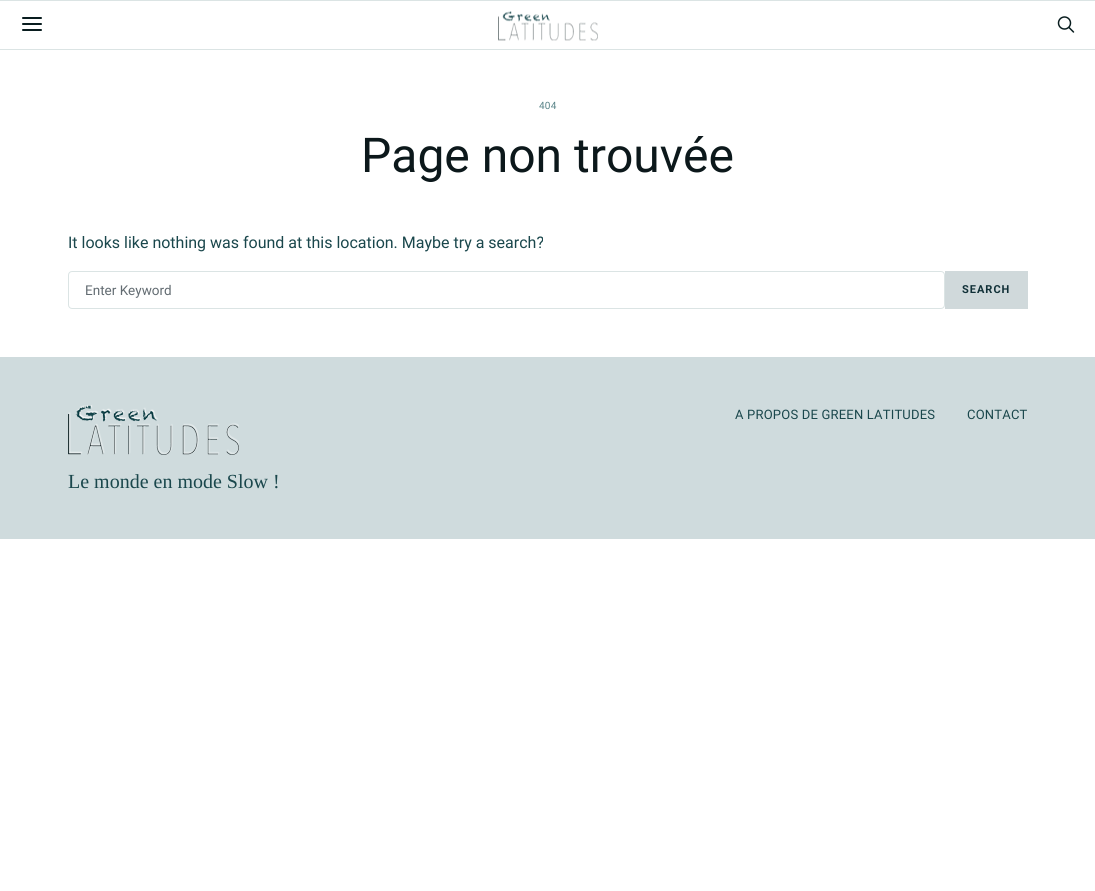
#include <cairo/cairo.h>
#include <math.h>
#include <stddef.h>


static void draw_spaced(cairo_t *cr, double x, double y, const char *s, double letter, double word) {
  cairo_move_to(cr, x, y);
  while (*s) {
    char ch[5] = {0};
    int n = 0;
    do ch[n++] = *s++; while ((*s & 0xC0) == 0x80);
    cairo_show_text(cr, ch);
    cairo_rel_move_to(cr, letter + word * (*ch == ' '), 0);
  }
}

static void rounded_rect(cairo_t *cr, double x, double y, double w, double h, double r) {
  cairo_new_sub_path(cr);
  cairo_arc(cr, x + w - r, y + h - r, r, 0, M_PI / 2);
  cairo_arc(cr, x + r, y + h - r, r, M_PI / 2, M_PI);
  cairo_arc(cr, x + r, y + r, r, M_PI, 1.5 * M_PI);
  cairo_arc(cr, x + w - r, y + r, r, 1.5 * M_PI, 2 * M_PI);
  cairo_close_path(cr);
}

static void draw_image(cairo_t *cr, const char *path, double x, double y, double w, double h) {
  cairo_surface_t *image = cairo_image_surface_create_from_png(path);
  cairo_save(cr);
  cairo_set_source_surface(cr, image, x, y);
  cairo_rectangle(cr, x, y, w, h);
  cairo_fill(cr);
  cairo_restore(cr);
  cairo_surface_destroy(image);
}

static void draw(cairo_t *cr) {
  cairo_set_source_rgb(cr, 1, 1, 1);
  cairo_paint(cr);
  cairo_set_source_rgb(cr, 219 / 255.0, 228 / 255.0, 228 / 255.0);
  cairo_rectangle(cr, 0, 0, 1095, 1);
  cairo_fill(cr);
  cairo_rectangle(cr, 0, 49, 1095, 1);
  cairo_fill(cr);
  draw_image(cr, "images/1.png", 22, 17, 20, 14);
  draw_image(cr, "images/2.png", 498, 11, 100, 30);
  draw_image(cr, "images/3.png", 1057, 16, 18, 17);
  rounded_rect(cr, 68.5, 271.5, 876, 37, 3.5);
  cairo_set_line_width(cr, 1);
  cairo_stroke(cr);
  cairo_set_source_rgb(cr, 208 / 255.0, 217 / 255.0, 219 / 255.0);
  cairo_rectangle(cr, 945, 271, 83, 38);
  cairo_fill(cr);
  cairo_set_source_rgb(cr, 207 / 255.0, 219 / 255.0, 221 / 255.0);
  cairo_rectangle(cr, 0, 357, 1095, 182);
  cairo_fill(cr);
  draw_image(cr, "images/4.png", 68, 405, 171, 50);
  cairo_select_font_face(cr, "Roboto", CAIRO_FONT_SLANT_NORMAL, CAIRO_FONT_WEIGHT_NORMAL);
  cairo_set_font_size(cr, 10);
  cairo_set_source_rgb(cr, 88 / 255.0, 131 / 255.0, 135 / 255.0);
  draw_spaced(cr, 539, 109, "404", 0.2, 0);
  cairo_set_font_size(cr, 48);
  cairo_set_source_rgb(cr, 12 / 255.0, 24 / 255.0, 27 / 255.0);
  cairo_move_to(cr, 361, 172);
  cairo_show_text(cr, "Page non trouvée");
  cairo_set_font_size(cr, 16);
  cairo_set_source_rgb(cr, 26 / 255.0, 71 / 255.0, 76 / 255.0);
  cairo_move_to(cr, 68, 248);
  cairo_show_text(cr, "It looks like nothing was found at this location. Maybe try a search?");
  cairo_set_font_size(cr, 13.5);
  cairo_set_source_rgb(cr, 99 / 255.0, 108 / 255.0, 114 / 255.0);
  cairo_move_to(cr, 85, 295);
  cairo_show_text(cr, "Enter Keyword");
  cairo_select_font_face(cr, "Roboto", CAIRO_FONT_SLANT_NORMAL, CAIRO_FONT_WEIGHT_BOLD);
  cairo_set_font_size(cr, 11);
  cairo_set_source_rgb(cr, 16 / 255.0, 48 / 255.0, 55 / 255.0);
  draw_spaced(cr, 962, 293, "SEARCH", 1, 0);
  cairo_select_font_face(cr, "Roboto", CAIRO_FONT_SLANT_NORMAL, CAIRO_FONT_WEIGHT_NORMAL);
  cairo_set_font_size(cr, 13);
  cairo_set_source_rgb(cr, 26 / 255.0, 71 / 255.0, 76 / 255.0);
  draw_spaced(cr, 735, 419, "A PROPOS DE GREEN LATITUDES", 0.2, 0);
  draw_spaced(cr, 967, 419, "CONTACT", 0.2, 0);
  cairo_select_font_face(cr, "Liberation Serif", CAIRO_FONT_SLANT_NORMAL, CAIRO_FONT_WEIGHT_NORMAL);
  cairo_set_font_size(cr, 20);
  cairo_move_to(cr, 68, 488);
  cairo_show_text(cr, "Le monde en mode Slow !");
}

int main(void) {
  cairo_surface_t *surface = cairo_image_surface_create(CAIRO_FORMAT_RGB24, 1095, 891);
  cairo_t *cr = cairo_create(surface);
  cairo_font_options_t *options = cairo_font_options_create();
  cairo_font_options_set_hint_metrics(options, CAIRO_HINT_METRICS_OFF);
  cairo_font_options_set_hint_style(options, CAIRO_HINT_STYLE_NONE);
  cairo_set_font_options(cr, options);
  cairo_set_miter_limit(cr, 4);
  draw(cr);
  cairo_surface_write_to_png(surface, "out.png");
  cairo_font_options_destroy(options);
  cairo_destroy(cr);
  cairo_surface_destroy(surface);
  return 0;
}
